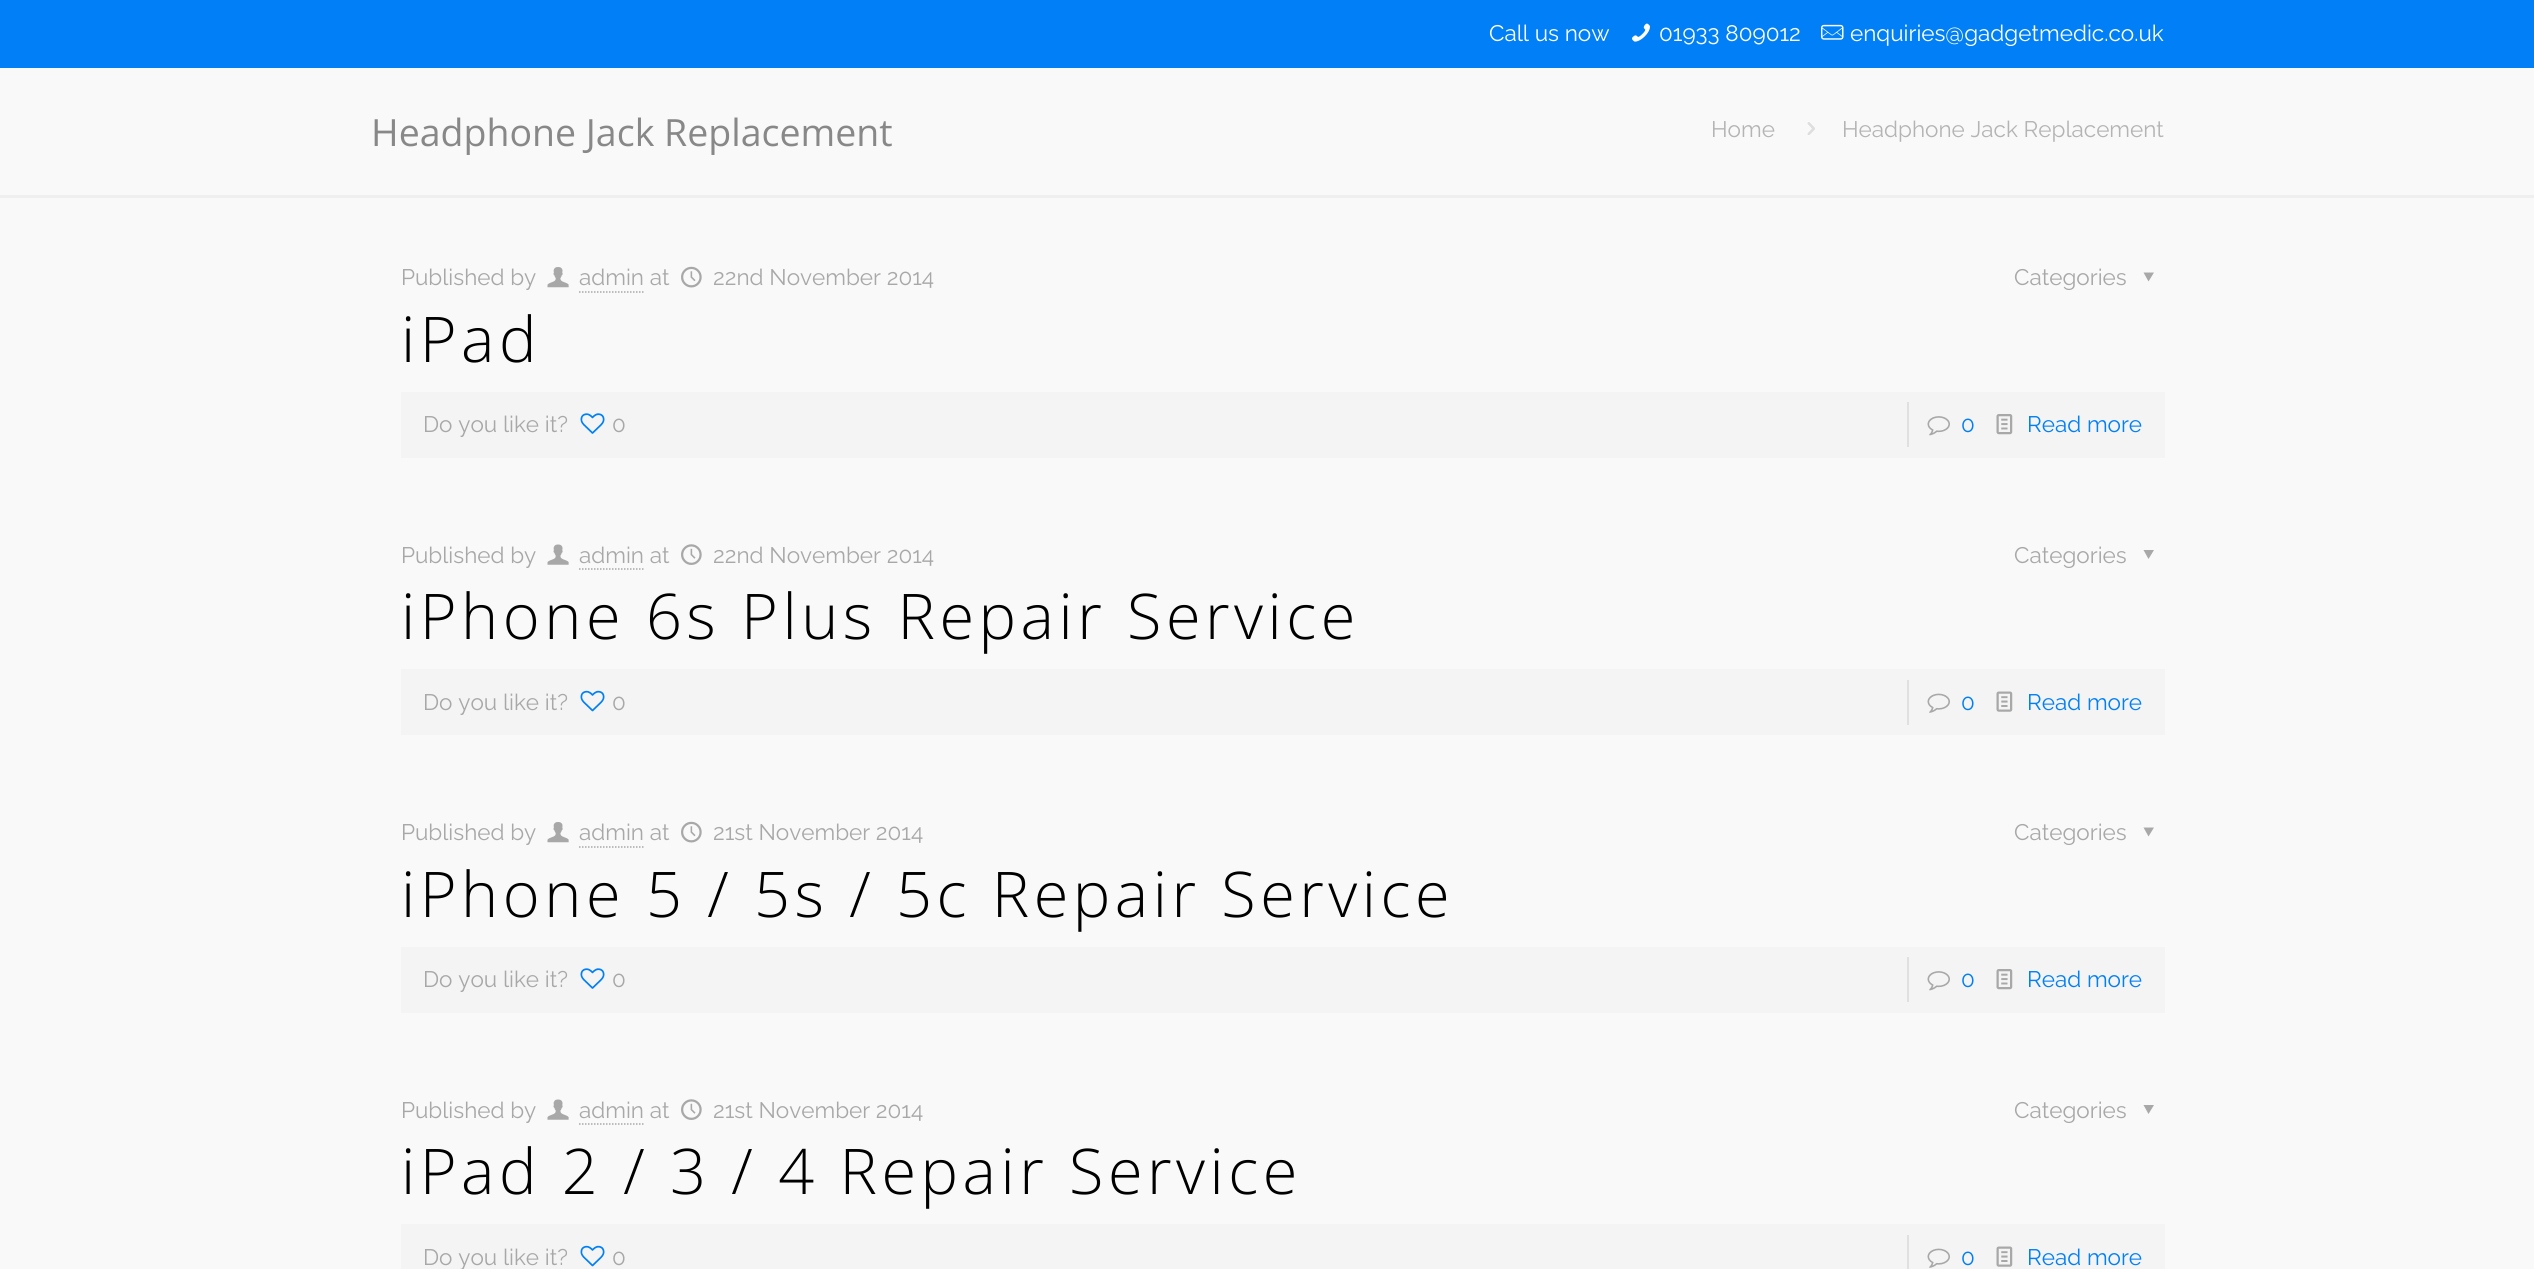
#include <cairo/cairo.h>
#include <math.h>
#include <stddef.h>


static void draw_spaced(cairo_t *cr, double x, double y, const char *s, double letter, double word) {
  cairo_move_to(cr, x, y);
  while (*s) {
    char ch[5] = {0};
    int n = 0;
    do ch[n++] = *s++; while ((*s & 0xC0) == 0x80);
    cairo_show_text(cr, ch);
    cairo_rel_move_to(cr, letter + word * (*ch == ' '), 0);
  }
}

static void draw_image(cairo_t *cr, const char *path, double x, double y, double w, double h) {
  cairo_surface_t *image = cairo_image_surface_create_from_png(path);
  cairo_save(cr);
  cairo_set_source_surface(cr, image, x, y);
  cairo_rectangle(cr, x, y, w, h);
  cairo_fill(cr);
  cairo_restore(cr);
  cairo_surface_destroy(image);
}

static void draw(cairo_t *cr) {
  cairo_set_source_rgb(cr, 249 / 255.0, 249 / 255.0, 249 / 255.0);
  cairo_paint(cr);
  cairo_set_source_rgb(cr, 0, 127 / 255.0, 246 / 255.0);
  cairo_rectangle(cr, 0, 0, 2534, 68);
  cairo_fill(cr);
  draw_image(cr, "images/1.png", 1632, 23, 18, 19);
  draw_image(cr, "images/2.png", 1821, 24, 23, 16);
  draw_image(cr, "images/3.png", 1807, 122, 8, 13);
  cairo_set_source_rgb(cr, 239 / 255.0, 239 / 255.0, 239 / 255.0);
  cairo_rectangle(cr, 0, 195, 2534, 3);
  cairo_fill(cr);
  draw_image(cr, "images/4.png", 547, 267, 22, 21);
  cairo_new_path(cr);
  cairo_move_to(cr, 579, 292);
  cairo_line_to(cr, 643.5, 292);
  cairo_set_source_rgb(cr, 168 / 255.0, 168 / 255.0, 168 / 255.0);
  cairo_set_line_width(cr, 1.5);
  cairo_set_dash(cr, (double[]){1.5, 1.5}, 2, 0);
  cairo_stroke(cr);
  draw_image(cr, "images/5.png", 681, 266, 21, 22);
  cairo_new_path(cr);
  cairo_move_to(cr, 2154, 272.5);
  cairo_line_to(cr, 2148.5, 281.5);
  cairo_line_to(cr, 2143.5, 272.5);
  cairo_close_path(cr);
  cairo_fill(cr);
  cairo_set_source_rgb(cr, 244 / 255.0, 244 / 255.0, 244 / 255.0);
  cairo_rectangle(cr, 401, 392, 1764, 66);
  cairo_fill(cr);
  draw_image(cr, "images/6.png", 580, 413, 25, 21);
  cairo_set_source_rgb(cr, 224 / 255.0, 224 / 255.0, 224 / 255.0);
  cairo_rectangle(cr, 1907, 402, 2, 45);
  cairo_fill(cr);
  draw_image(cr, "images/7.png", 1927, 416, 23, 20);
  draw_image(cr, "images/8.png", 1996, 414, 17, 21);
  draw_image(cr, "images/9.png", 547, 544, 22, 21);
  cairo_new_path(cr);
  cairo_move_to(cr, 579, 569);
  cairo_line_to(cr, 643.5, 569);
  cairo_set_source_rgb(cr, 168 / 255.0, 168 / 255.0, 168 / 255.0);
  cairo_stroke(cr);
  draw_image(cr, "images/10.png", 681, 544, 21, 21);
  cairo_new_path(cr);
  cairo_move_to(cr, 2154, 550);
  cairo_line_to(cr, 2148.5, 559);
  cairo_line_to(cr, 2143.5, 550);
  cairo_close_path(cr);
  cairo_fill(cr);
  cairo_set_source_rgb(cr, 244 / 255.0, 244 / 255.0, 244 / 255.0);
  cairo_rectangle(cr, 401, 669, 1764, 66);
  cairo_fill(cr);
  draw_image(cr, "images/11.png", 580, 690, 25, 22);
  cairo_set_source_rgb(cr, 224 / 255.0, 224 / 255.0, 224 / 255.0);
  cairo_rectangle(cr, 1907, 680, 2, 45);
  cairo_fill(cr);
  draw_image(cr, "images/12.png", 1927, 693, 23, 20);
  draw_image(cr, "images/13.png", 1996, 691, 17, 21);
  draw_image(cr, "images/4.png", 547, 822, 22, 21);
  cairo_new_path(cr);
  cairo_move_to(cr, 579, 847);
  cairo_line_to(cr, 643.5, 847);
  cairo_set_source_rgb(cr, 168 / 255.0, 168 / 255.0, 168 / 255.0);
  cairo_stroke(cr);
  draw_image(cr, "images/5.png", 681, 821, 21, 22);
  cairo_new_path(cr);
  cairo_move_to(cr, 2154, 827.5);
  cairo_line_to(cr, 2148.5, 836.5);
  cairo_line_to(cr, 2143.5, 827.5);
  cairo_close_path(cr);
  cairo_fill(cr);
  cairo_set_source_rgb(cr, 244 / 255.0, 244 / 255.0, 244 / 255.0);
  cairo_rectangle(cr, 401, 947, 1764, 66);
  cairo_fill(cr);
  draw_image(cr, "images/6.png", 580, 968, 25, 21);
  cairo_set_source_rgb(cr, 224 / 255.0, 224 / 255.0, 224 / 255.0);
  cairo_rectangle(cr, 1907, 957, 2, 45);
  cairo_fill(cr);
  draw_image(cr, "images/7.png", 1927, 971, 23, 20);
  draw_image(cr, "images/8.png", 1996, 969, 17, 21);
  draw_image(cr, "images/9.png", 547, 1099, 22, 21);
  cairo_new_path(cr);
  cairo_move_to(cr, 579, 1124);
  cairo_line_to(cr, 643.5, 1124);
  cairo_set_source_rgb(cr, 168 / 255.0, 168 / 255.0, 168 / 255.0);
  cairo_stroke(cr);
  draw_image(cr, "images/10.png", 681, 1099, 21, 21);
  cairo_new_path(cr);
  cairo_move_to(cr, 2154, 1105);
  cairo_line_to(cr, 2148.5, 1114);
  cairo_line_to(cr, 2143.5, 1105);
  cairo_close_path(cr);
  cairo_fill(cr);
  cairo_set_source_rgb(cr, 244 / 255.0, 244 / 255.0, 244 / 255.0);
  cairo_rectangle(cr, 401, 1224, 1764, 45);
  cairo_fill(cr);
  draw_image(cr, "images/11.png", 580, 1245, 25, 22);
  cairo_set_source_rgb(cr, 224 / 255.0, 224 / 255.0, 224 / 255.0);
  cairo_rectangle(cr, 1907, 1235, 2, 34);
  cairo_fill(cr);
  draw_image(cr, "images/12.png", 1927, 1248, 23, 20);
  draw_image(cr, "images/13.png", 1996, 1246, 17, 21);
  cairo_select_font_face(cr, "Raleway", CAIRO_FONT_SLANT_NORMAL, CAIRO_FONT_WEIGHT_NORMAL);
  cairo_set_font_size(cr, 22.5);
  cairo_set_source_rgb(cr, 1, 1, 1);
  cairo_move_to(cr, 1489, 41);
  cairo_show_text(cr, "Call us now");
  cairo_move_to(cr, 1659, 41);
  cairo_show_text(cr, "01933 809012");
  cairo_move_to(cr, 1850, 41);
  cairo_show_text(cr, "enquiries@gadgetmedic.co.uk");
  cairo_select_font_face(cr, "Open Sans", CAIRO_FONT_SLANT_NORMAL, CAIRO_FONT_WEIGHT_NORMAL);
  cairo_set_font_size(cr, 37.5);
  cairo_set_source_rgb(cr, 136 / 255.0, 136 / 255.0, 136 / 255.0);
  cairo_move_to(cr, 371, 146);
  cairo_show_text(cr, "Headphone Jack Replacement");
  cairo_select_font_face(cr, "Raleway", CAIRO_FONT_SLANT_NORMAL, CAIRO_FONT_WEIGHT_NORMAL);
  cairo_set_font_size(cr, 22.5);
  cairo_set_source_rgb(cr, 180 / 255.0, 180 / 255.0, 180 / 255.0);
  cairo_move_to(cr, 1711, 137);
  cairo_show_text(cr, "Home");
  cairo_move_to(cr, 1842, 137);
  cairo_show_text(cr, "Headphone Jack Replacement");
  cairo_set_source_rgb(cr, 168 / 255.0, 168 / 255.0, 168 / 255.0);
  cairo_move_to(cr, 401, 285);
  cairo_show_text(cr, "Published by");
  cairo_move_to(cr, 579, 285);
  cairo_show_text(cr, "admin at");
  cairo_move_to(cr, 713, 285);
  cairo_show_text(cr, "22nd November 2014");
  cairo_move_to(cr, 2014, 285);
  cairo_show_text(cr, "Categories");
  cairo_select_font_face(cr, "Open Sans Light", CAIRO_FONT_SLANT_NORMAL, CAIRO_FONT_WEIGHT_NORMAL);
  cairo_set_font_size(cr, 63);
  cairo_set_source_rgb(cr, 0, 0, 0);
  draw_spaced(cr, 401, 362, "iPad", 4.5, 0);
  cairo_select_font_face(cr, "Raleway", CAIRO_FONT_SLANT_NORMAL, CAIRO_FONT_WEIGHT_NORMAL);
  cairo_set_font_size(cr, 22.5);
  cairo_set_source_rgb(cr, 168 / 255.0, 168 / 255.0, 168 / 255.0);
  cairo_move_to(cr, 423, 432);
  cairo_show_text(cr, "Do you like it?");
  cairo_move_to(cr, 612, 432);
  cairo_show_text(cr, "0");
  cairo_set_source_rgb(cr, 0, 127 / 255.0, 246 / 255.0);
  cairo_move_to(cr, 1961, 432);
  cairo_show_text(cr, "0");
  cairo_move_to(cr, 2027, 432);
  cairo_show_text(cr, "Read more");
  cairo_set_source_rgb(cr, 168 / 255.0, 168 / 255.0, 168 / 255.0);
  cairo_move_to(cr, 401, 563);
  cairo_show_text(cr, "Published by");
  cairo_move_to(cr, 579, 563);
  cairo_show_text(cr, "admin at");
  cairo_move_to(cr, 713, 563);
  cairo_show_text(cr, "22nd November 2014");
  cairo_move_to(cr, 2014, 563);
  cairo_show_text(cr, "Categories");
  cairo_select_font_face(cr, "Open Sans Light", CAIRO_FONT_SLANT_NORMAL, CAIRO_FONT_WEIGHT_NORMAL);
  cairo_set_font_size(cr, 63);
  cairo_set_source_rgb(cr, 0, 0, 0);
  draw_spaced(cr, 401, 639, "iPhone 6s Plus Repair Service", 4.5, 0);
  cairo_select_font_face(cr, "Raleway", CAIRO_FONT_SLANT_NORMAL, CAIRO_FONT_WEIGHT_NORMAL);
  cairo_set_font_size(cr, 22.5);
  cairo_set_source_rgb(cr, 168 / 255.0, 168 / 255.0, 168 / 255.0);
  cairo_move_to(cr, 423, 710);
  cairo_show_text(cr, "Do you like it?");
  cairo_move_to(cr, 612, 710);
  cairo_show_text(cr, "0");
  cairo_set_source_rgb(cr, 0, 127 / 255.0, 246 / 255.0);
  cairo_move_to(cr, 1961, 710);
  cairo_show_text(cr, "0");
  cairo_move_to(cr, 2027, 710);
  cairo_show_text(cr, "Read more");
  cairo_set_source_rgb(cr, 168 / 255.0, 168 / 255.0, 168 / 255.0);
  cairo_move_to(cr, 401, 840);
  cairo_show_text(cr, "Published by");
  cairo_move_to(cr, 579, 840);
  cairo_show_text(cr, "admin at");
  cairo_move_to(cr, 713, 840);
  cairo_show_text(cr, "21st November 2014");
  cairo_move_to(cr, 2014, 840);
  cairo_show_text(cr, "Categories");
  cairo_select_font_face(cr, "Open Sans Light", CAIRO_FONT_SLANT_NORMAL, CAIRO_FONT_WEIGHT_NORMAL);
  cairo_set_font_size(cr, 63);
  cairo_set_source_rgb(cr, 0, 0, 0);
  draw_spaced(cr, 401, 917, "iPhone 5 / 5s / 5c Repair Service", 4.5, 0);
  cairo_select_font_face(cr, "Raleway", CAIRO_FONT_SLANT_NORMAL, CAIRO_FONT_WEIGHT_NORMAL);
  cairo_set_font_size(cr, 22.5);
  cairo_set_source_rgb(cr, 168 / 255.0, 168 / 255.0, 168 / 255.0);
  cairo_move_to(cr, 423, 987);
  cairo_show_text(cr, "Do you like it?");
  cairo_move_to(cr, 612, 987);
  cairo_show_text(cr, "0");
  cairo_set_source_rgb(cr, 0, 127 / 255.0, 246 / 255.0);
  cairo_move_to(cr, 1961, 987);
  cairo_show_text(cr, "0");
  cairo_move_to(cr, 2027, 987);
  cairo_show_text(cr, "Read more");
  cairo_set_source_rgb(cr, 168 / 255.0, 168 / 255.0, 168 / 255.0);
  cairo_move_to(cr, 401, 1118);
  cairo_show_text(cr, "Published by");
  cairo_move_to(cr, 579, 1118);
  cairo_show_text(cr, "admin at");
  cairo_move_to(cr, 713, 1118);
  cairo_show_text(cr, "21st November 2014");
  cairo_move_to(cr, 2014, 1118);
  cairo_show_text(cr, "Categories");
  cairo_select_font_face(cr, "Open Sans Light", CAIRO_FONT_SLANT_NORMAL, CAIRO_FONT_WEIGHT_NORMAL);
  cairo_set_font_size(cr, 63);
  cairo_set_source_rgb(cr, 0, 0, 0);
  draw_spaced(cr, 401, 1194, "iPad 2 / 3 / 4 Repair Service", 4.5, 0);
  cairo_select_font_face(cr, "Raleway", CAIRO_FONT_SLANT_NORMAL, CAIRO_FONT_WEIGHT_NORMAL);
  cairo_set_font_size(cr, 22.5);
  cairo_set_source_rgb(cr, 168 / 255.0, 168 / 255.0, 168 / 255.0);
  cairo_move_to(cr, 423, 1265);
  cairo_show_text(cr, "Do you like it?");
  cairo_move_to(cr, 612, 1265);
  cairo_show_text(cr, "0");
  cairo_set_source_rgb(cr, 0, 127 / 255.0, 246 / 255.0);
  cairo_move_to(cr, 1961, 1265);
  cairo_show_text(cr, "0");
  cairo_move_to(cr, 2027, 1265);
  cairo_show_text(cr, "Read more");
}

int main(void) {
  cairo_surface_t *surface = cairo_image_surface_create(CAIRO_FORMAT_RGB24, 2534, 1269);
  cairo_t *cr = cairo_create(surface);
  cairo_font_options_t *options = cairo_font_options_create();
  cairo_font_options_set_hint_metrics(options, CAIRO_HINT_METRICS_OFF);
  cairo_font_options_set_hint_style(options, CAIRO_HINT_STYLE_NONE);
  cairo_set_font_options(cr, options);
  cairo_set_miter_limit(cr, 4);
  draw(cr);
  cairo_surface_write_to_png(surface, "out.png");
  cairo_font_options_destroy(options);
  cairo_destroy(cr);
  cairo_surface_destroy(surface);
  return 0;
}
